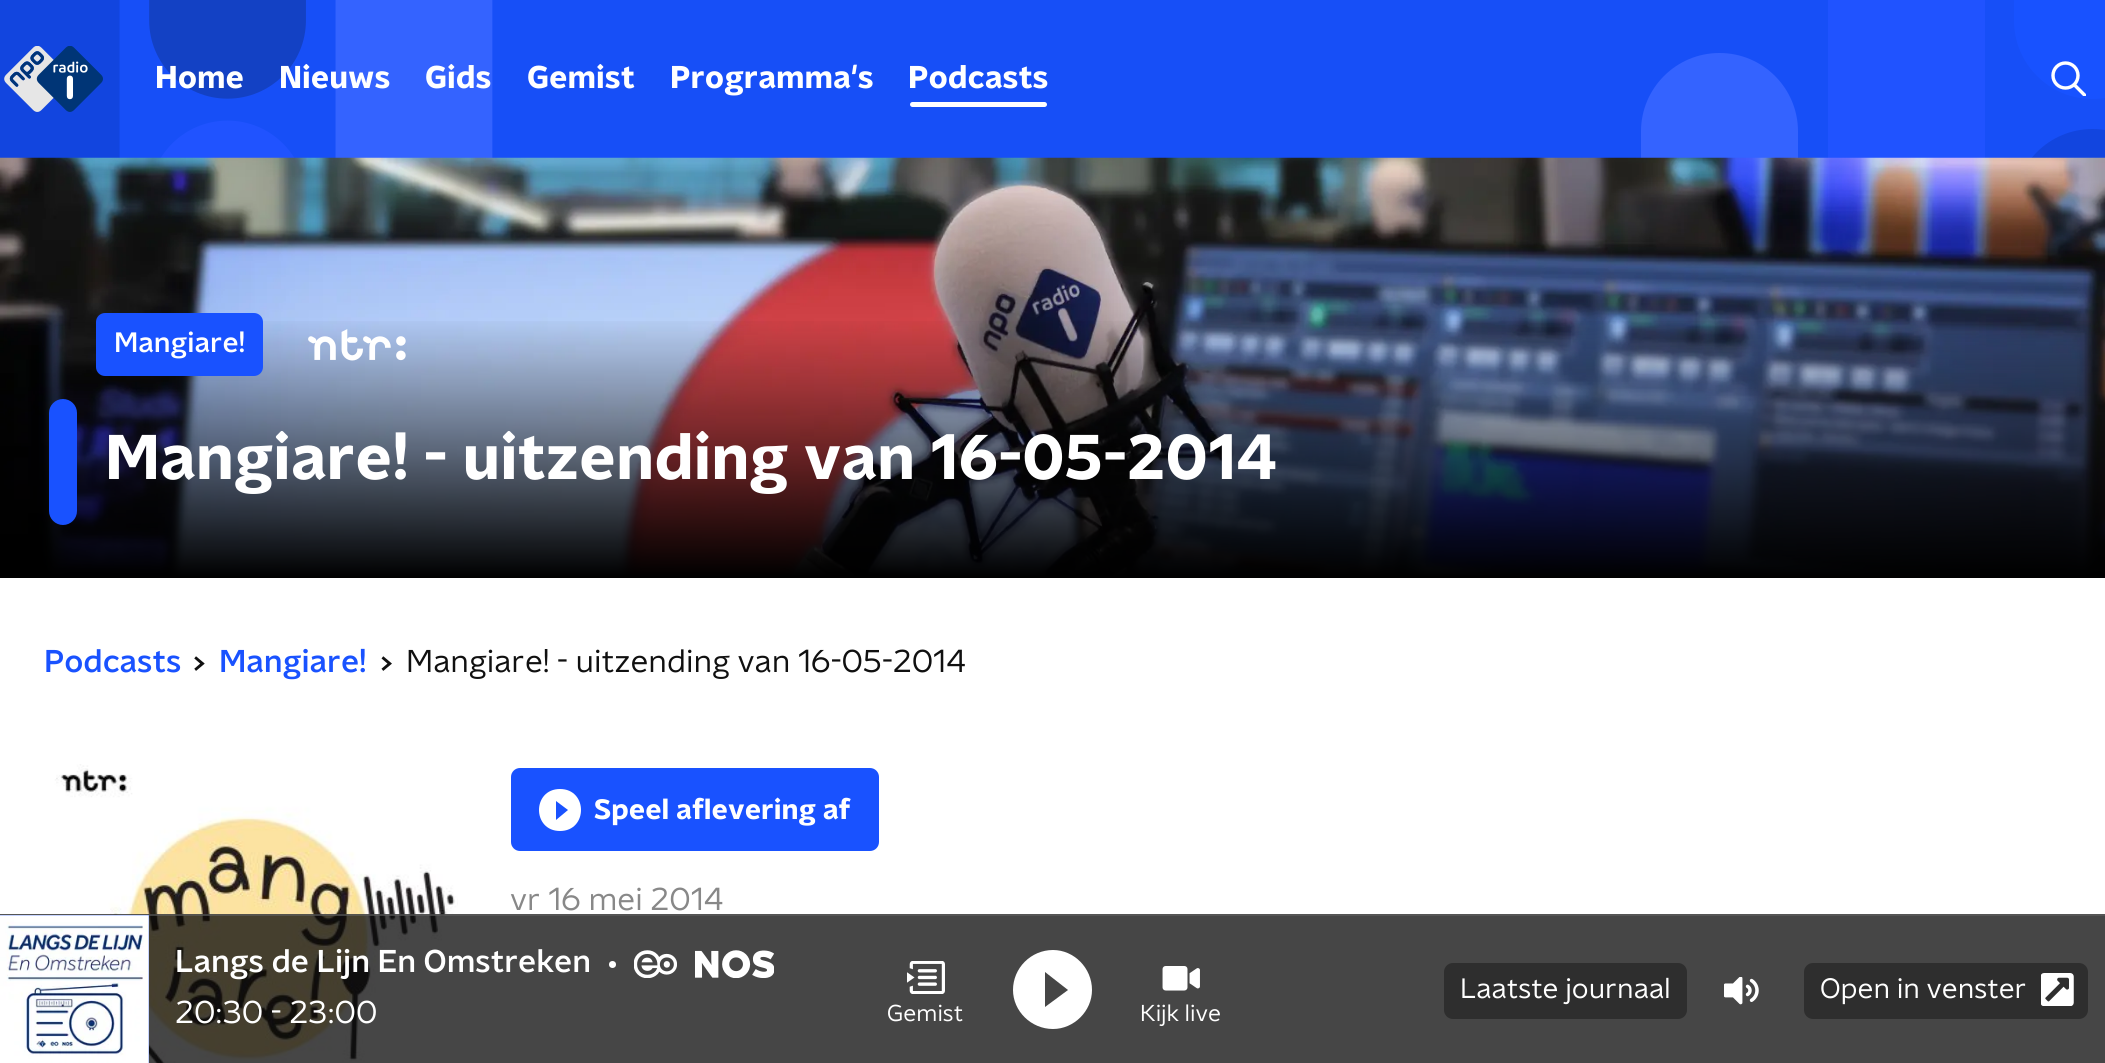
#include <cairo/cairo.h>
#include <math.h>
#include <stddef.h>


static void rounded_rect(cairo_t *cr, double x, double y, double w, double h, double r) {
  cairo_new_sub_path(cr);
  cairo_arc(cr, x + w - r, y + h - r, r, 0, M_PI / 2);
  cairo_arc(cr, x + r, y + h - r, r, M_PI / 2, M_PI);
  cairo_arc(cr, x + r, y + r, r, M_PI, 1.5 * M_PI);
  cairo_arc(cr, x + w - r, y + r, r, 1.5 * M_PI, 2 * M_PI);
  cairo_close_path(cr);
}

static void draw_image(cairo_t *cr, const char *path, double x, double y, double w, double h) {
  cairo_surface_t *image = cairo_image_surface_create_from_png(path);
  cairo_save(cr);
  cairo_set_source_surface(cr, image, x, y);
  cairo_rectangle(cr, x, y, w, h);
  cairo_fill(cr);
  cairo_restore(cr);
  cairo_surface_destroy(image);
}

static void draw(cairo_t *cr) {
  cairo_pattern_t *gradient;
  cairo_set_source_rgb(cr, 1, 1, 1);
  cairo_paint(cr);
  draw_image(cr, "images/1.png", 0, 0, 2105, 158);
  draw_image(cr, "images/2.png", 4, 46, 99, 66);
  cairo_set_source_rgb(cr, 1, 1, 1);
  rounded_rect(cr, 910, 102, 137, 5, 2.5);
  cairo_fill(cr);
  cairo_arc(cr, 2065.5, 75.5, 12.5, 0, 2 * M_PI);
  cairo_set_line_width(cr, 3.4);
  cairo_stroke(cr);
  cairo_save(cr);
  cairo_rectangle(cr, 2051, 61, 35, 35);
  cairo_clip(cr);
  cairo_new_path(cr);
  cairo_move_to(cr, 2074.5, 85);
  cairo_line_to(cr, 2085, 95.5);
  cairo_set_line_cap(cr, CAIRO_LINE_CAP_SQUARE);
  cairo_stroke(cr);
  cairo_restore(cr);
  draw_image(cr, "images/3.png", 0, 157, 2105, 419);
  gradient = cairo_pattern_create_linear(1053, 315, 1053, 578);
  cairo_pattern_add_color_stop_rgba(gradient, 0, 0, 0, 0, 0);
  cairo_pattern_add_color_stop_rgba(gradient, 1, 0, 0, 0, 1);
  cairo_set_source(cr, gradient);
  cairo_pattern_destroy(gradient);
  cairo_rectangle(cr, 0, 321, 2105, 257);
  cairo_fill(cr);
  cairo_set_source_rgb(cr, 25 / 255.0, 82 / 255.0, 1);
  rounded_rect(cr, 96, 313, 167, 63, 9);
  cairo_fill(cr);
  draw_image(cr, "images/4.png", 308, 329, 98, 32);
  rounded_rect(cr, 49, 399, 28, 126, 14);
  cairo_fill(cr);
  draw_image(cr, "images/5.png", 194, 656, 11, 15);
  draw_image(cr, "images/6.png", 381, 656, 11, 15);
  draw_image(cr, "images/7.png", 44, 764, 414, 299);
  rounded_rect(cr, 511, 768, 368, 83, 9);
  cairo_fill(cr);
  cairo_set_source_rgb(cr, 1, 1, 1);
  cairo_new_path(cr);
  cairo_move_to(cr, 560, 789);
  cairo_curve_to(cr, 532, 789, 532, 831, 560, 831);
  cairo_curve_to(cr, 588, 831, 588, 789, 560, 789);
  cairo_close_path(cr);
  cairo_move_to(cr, 556, 820);
  cairo_line_to(cr, 556, 801);
  cairo_line_to(cr, 568, 810);
  cairo_close_path(cr);
  cairo_fill(cr);
  cairo_set_source_rgba(cr, 9 / 255.0, 9 / 255.0, 9 / 255.0, 0.75);
  cairo_rectangle(cr, 0, 914, 2105, 149);
  cairo_fill(cr);
  cairo_set_source_rgba(cr, 95 / 255.0, 95 / 255.0, 95 / 255.0, 0.65);
  cairo_rectangle(cr, 0, 914, 2105, 2);
  cairo_fill(cr);
  cairo_set_source_rgb(cr, 25 / 255.0, 82 / 255.0, 1);
  cairo_rectangle(cr, 0, 915, 149, 148);
  cairo_fill(cr);
  draw_image(cr, "images/8.png", 0, 915, 149, 148);
  cairo_set_source_rgb(cr, 1, 1, 1);
  cairo_arc(cr, 612.5, 964.5, 3.5, 0, 2 * M_PI);
  cairo_fill(cr);
  draw_image(cr, "images/9.png", 634, 950, 43, 28);
  draw_image(cr, "images/10.png", 695, 950, 79, 28);
  cairo_set_source_rgba(cr, 0, 0, 0, 0.35);
  rounded_rect(cr, 1444, 963, 243, 56, 9);
  cairo_fill(cr);
  draw_image(cr, "images/11.png", 1724, 977, 35, 28);
  cairo_set_source_rgb(cr, 46 / 255.0, 46 / 255.0, 46 / 255.0);
  rounded_rect(cr, 1804, 963, 284, 56, 9);
  cairo_fill(cr);
  draw_image(cr, "images/12.png", 2041, 973, 33, 33);
  draw_image(cr, "images/13.png", 907, 961, 38, 33);
  cairo_set_source_rgb(cr, 1, 1, 1);
  cairo_new_path(cr);
  cairo_move_to(cr, 1053, 950);
  cairo_curve_to(cr, 1031, 950, 1013, 968, 1013, 990);
  cairo_curve_to(cr, 1013, 1011, 1031, 1029, 1053, 1029);
  cairo_curve_to(cr, 1074, 1029, 1092, 1011, 1092, 990);
  cairo_curve_to(cr, 1092, 968, 1074, 950, 1053, 950);
  cairo_close_path(cr);
  cairo_move_to(cr, 1045, 1007);
  cairo_line_to(cr, 1045, 972);
  cairo_line_to(cr, 1068, 990);
  cairo_close_path(cr);
  cairo_fill(cr);
  draw_image(cr, "images/14.png", 1162, 966, 38, 25);
  cairo_select_font_face(cr, "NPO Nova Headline", CAIRO_FONT_SLANT_NORMAL, CAIRO_FONT_WEIGHT_BOLD);
  cairo_set_font_size(cr, 31.5);
  cairo_move_to(cr, 155, 88);
  cairo_show_text(cr, "Home");
  cairo_move_to(cr, 279, 88);
  cairo_show_text(cr, "Nieuws");
  cairo_move_to(cr, 425, 88);
  cairo_show_text(cr, "Gids");
  cairo_move_to(cr, 527, 88);
  cairo_show_text(cr, "Gemist");
  cairo_move_to(cr, 670, 88);
  cairo_show_text(cr, "Programma's");
  cairo_move_to(cr, 908, 88);
  cairo_show_text(cr, "Podcasts");
  cairo_select_font_face(cr, "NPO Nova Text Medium", CAIRO_FONT_SLANT_NORMAL, CAIRO_FONT_WEIGHT_NORMAL);
  cairo_set_font_size(cr, 28);
  cairo_move_to(cr, 114, 352);
  cairo_show_text(cr, "Mangiare!");
  cairo_select_font_face(cr, "NPO Nova Headline", CAIRO_FONT_SLANT_NORMAL, CAIRO_FONT_WEIGHT_BOLD);
  cairo_set_font_size(cr, 63);
  cairo_move_to(cr, 105, 479);
  cairo_show_text(cr, "Mangiare! - uitzending van 16-05-2014");
  cairo_select_font_face(cr, "NPO Nova Text Medium", CAIRO_FONT_SLANT_NORMAL, CAIRO_FONT_WEIGHT_NORMAL);
  cairo_set_font_size(cr, 31.5);
  cairo_set_source_rgb(cr, 25 / 255.0, 82 / 255.0, 1);
  cairo_move_to(cr, 44, 672);
  cairo_show_text(cr, "Podcasts");
  cairo_move_to(cr, 219, 672);
  cairo_show_text(cr, "Mangiare!");
  cairo_select_font_face(cr, "NPO Nova Text", CAIRO_FONT_SLANT_NORMAL, CAIRO_FONT_WEIGHT_NORMAL);
  cairo_set_source_rgb(cr, 16 / 255.0, 16 / 255.0, 16 / 255.0);
  cairo_move_to(cr, 406, 672);
  cairo_show_text(cr, "Mangiare! - uitzending van 16-05-2014");
  cairo_select_font_face(cr, "NPO Nova Headline", CAIRO_FONT_SLANT_NORMAL, CAIRO_FONT_WEIGHT_BOLD);
  cairo_set_font_size(cr, 28);
  cairo_set_source_rgb(cr, 1, 1, 1);
  cairo_move_to(cr, 594, 819);
  cairo_show_text(cr, "Speel aflevering af");
  cairo_select_font_face(cr, "NPO Nova Text", CAIRO_FONT_SLANT_NORMAL, CAIRO_FONT_WEIGHT_NORMAL);
  cairo_set_font_size(cr, 31.5);
  cairo_set_source_rgb(cr, 136 / 255.0, 136 / 255.0, 136 / 255.0);
  cairo_move_to(cr, 510, 910);
  cairo_show_text(cr, "vr 16 mei 2014");
  cairo_select_font_face(cr, "NPO Nova Text Medium", CAIRO_FONT_SLANT_NORMAL, CAIRO_FONT_WEIGHT_NORMAL);
  cairo_set_source_rgb(cr, 1, 1, 1);
  cairo_move_to(cr, 175, 972);
  cairo_show_text(cr, "Langs de Lijn En Omstreken");
  cairo_select_font_face(cr, "NPO Nova Text", CAIRO_FONT_SLANT_NORMAL, CAIRO_FONT_WEIGHT_NORMAL);
  cairo_move_to(cr, 175, 1023);
  cairo_show_text(cr, "20:30 - 23:00");
  cairo_set_font_size(cr, 28);
  cairo_move_to(cr, 1460, 998);
  cairo_show_text(cr, "Laatste journaal");
  cairo_move_to(cr, 1820, 998);
  cairo_show_text(cr, "Open in venster");
  cairo_set_font_size(cr, 23);
  cairo_move_to(cr, 887, 1021);
  cairo_show_text(cr, "Gemist");
  cairo_move_to(cr, 1140, 1021);
  cairo_show_text(cr, "Kijk live");
}

int main(void) {
  cairo_surface_t *surface = cairo_image_surface_create(CAIRO_FORMAT_RGB24, 2105, 1063);
  cairo_t *cr = cairo_create(surface);
  cairo_font_options_t *options = cairo_font_options_create();
  cairo_font_options_set_hint_metrics(options, CAIRO_HINT_METRICS_OFF);
  cairo_font_options_set_hint_style(options, CAIRO_HINT_STYLE_NONE);
  cairo_set_font_options(cr, options);
  cairo_set_miter_limit(cr, 4);
  draw(cr);
  cairo_surface_write_to_png(surface, "out.png");
  cairo_font_options_destroy(options);
  cairo_destroy(cr);
  cairo_surface_destroy(surface);
  return 0;
}
